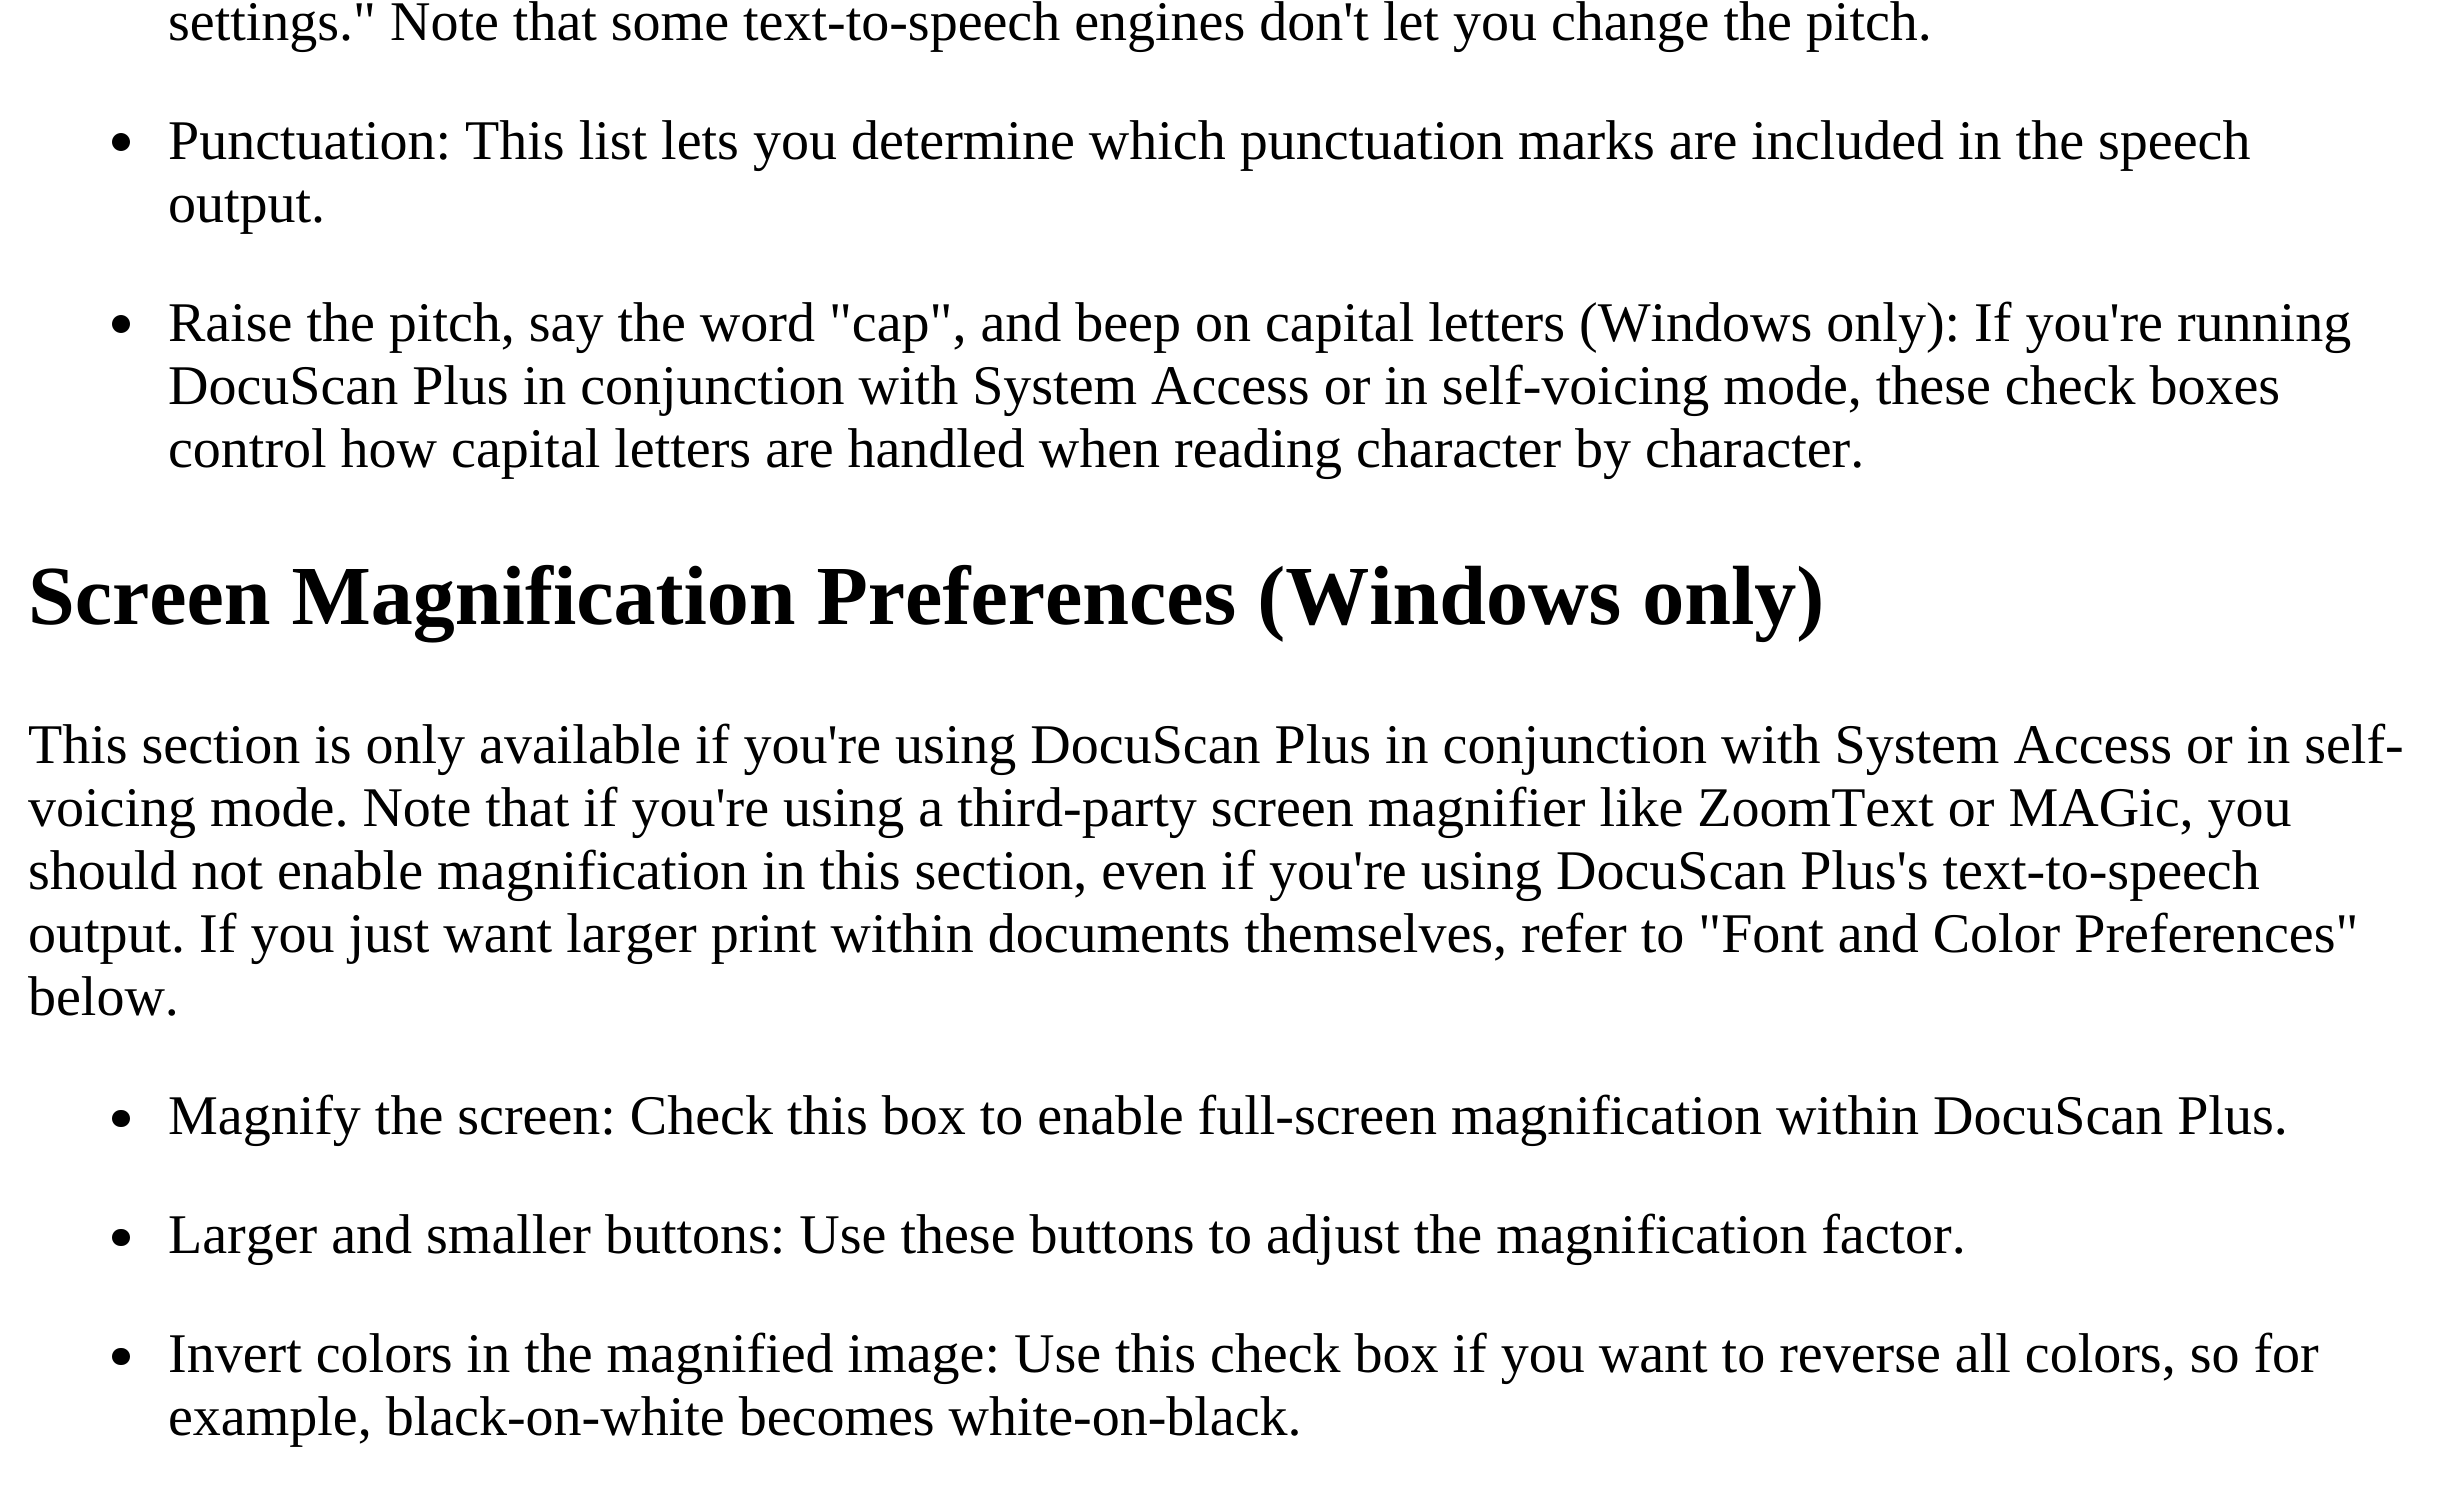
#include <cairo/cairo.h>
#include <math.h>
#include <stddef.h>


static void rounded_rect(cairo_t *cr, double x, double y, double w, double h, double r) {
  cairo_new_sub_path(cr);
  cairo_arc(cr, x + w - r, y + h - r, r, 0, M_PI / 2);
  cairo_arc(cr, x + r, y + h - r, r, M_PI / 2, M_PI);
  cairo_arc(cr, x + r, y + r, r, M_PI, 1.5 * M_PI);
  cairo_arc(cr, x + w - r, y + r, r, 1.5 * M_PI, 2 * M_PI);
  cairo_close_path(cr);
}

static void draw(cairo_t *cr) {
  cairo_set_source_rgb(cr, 1, 1, 1);
  cairo_paint(cr);
  cairo_set_source_rgb(cr, 0, 0, 0);
  cairo_arc(cr, 121, 142, 9, 0, 2 * M_PI);
  cairo_fill(cr);
  cairo_arc(cr, 121, 324, 9, 0, 2 * M_PI);
  cairo_fill(cr);
  rounded_rect(cr, 112, 1110, 18, 17, 8.5);
  cairo_fill(cr);
  rounded_rect(cr, 112, 1229, 18, 17, 8.5);
  cairo_fill(cr);
  rounded_rect(cr, 112, 1348, 18, 17, 8.5);
  cairo_fill(cr);
  cairo_select_font_face(cr, "Liberation Serif", CAIRO_FONT_SLANT_NORMAL, CAIRO_FONT_WEIGHT_NORMAL);
  cairo_set_font_size(cr, 56);
  cairo_move_to(cr, 168, 40);
  cairo_show_text(cr, "settings.\" Note that some text-to-speech engines don't let you change the pitch.");
  cairo_move_to(cr, 168, 159);
  cairo_show_text(cr, "Punctuation: This list lets you determine which punctuation marks are included in the speech");
  cairo_move_to(cr, 168, 222);
  cairo_show_text(cr, "output.");
  cairo_move_to(cr, 168, 341);
  cairo_show_text(cr, "Raise the pitch, say the word \"cap\", and beep on capital letters (Windows only): If you're running");
  cairo_move_to(cr, 168, 404);
  cairo_show_text(cr, "DocuScan Plus in conjunction with System Access or in self-voicing mode, these check boxes");
  cairo_move_to(cr, 168, 467);
  cairo_show_text(cr, "control how capital letters are handled when reading character by character.");
  cairo_select_font_face(cr, "Liberation Serif", CAIRO_FONT_SLANT_NORMAL, CAIRO_FONT_WEIGHT_BOLD);
  cairo_set_font_size(cr, 84);
  cairo_move_to(cr, 28, 624);
  cairo_show_text(cr, "Screen Magnification Preferences (Windows only)");
  cairo_select_font_face(cr, "Liberation Serif", CAIRO_FONT_SLANT_NORMAL, CAIRO_FONT_WEIGHT_NORMAL);
  cairo_set_font_size(cr, 56);
  cairo_move_to(cr, 28, 763);
  cairo_show_text(cr, "This section is only available if you're using DocuScan Plus in conjunction with System Access or in self-");
  cairo_move_to(cr, 28, 826);
  cairo_show_text(cr, "voicing mode. Note that if you're using a third-party screen magnifier like ZoomText or MAGic, you");
  cairo_move_to(cr, 28, 889);
  cairo_show_text(cr, "should not enable magnification in this section, even if you're using DocuScan Plus's text-to-speech");
  cairo_move_to(cr, 28, 952);
  cairo_show_text(cr, "output. If you just want larger print within documents themselves, refer to \"Font and Color Preferences\"");
  cairo_move_to(cr, 28, 1015);
  cairo_show_text(cr, "below.");
  cairo_move_to(cr, 168, 1134);
  cairo_show_text(cr, "Magnify the screen: Check this box to enable full-screen magnification within DocuScan Plus.");
  cairo_move_to(cr, 168, 1253);
  cairo_show_text(cr, "Larger and smaller buttons: Use these buttons to adjust the magnification factor.");
  cairo_move_to(cr, 168, 1372);
  cairo_show_text(cr, "Invert colors in the magnified image: Use this check box if you want to reverse all colors, so for");
  cairo_move_to(cr, 168, 1435);
  cairo_show_text(cr, "example, black-on-white becomes white-on-black.");
}

int main(void) {
  cairo_surface_t *surface = cairo_image_surface_create(CAIRO_FORMAT_RGB24, 2440, 1512);
  cairo_t *cr = cairo_create(surface);
  cairo_font_options_t *options = cairo_font_options_create();
  cairo_font_options_set_hint_metrics(options, CAIRO_HINT_METRICS_OFF);
  cairo_font_options_set_hint_style(options, CAIRO_HINT_STYLE_NONE);
  cairo_set_font_options(cr, options);
  cairo_set_miter_limit(cr, 4);
  draw(cr);
  cairo_surface_write_to_png(surface, "out.png");
  cairo_font_options_destroy(options);
  cairo_destroy(cr);
  cairo_surface_destroy(surface);
  return 0;
}
